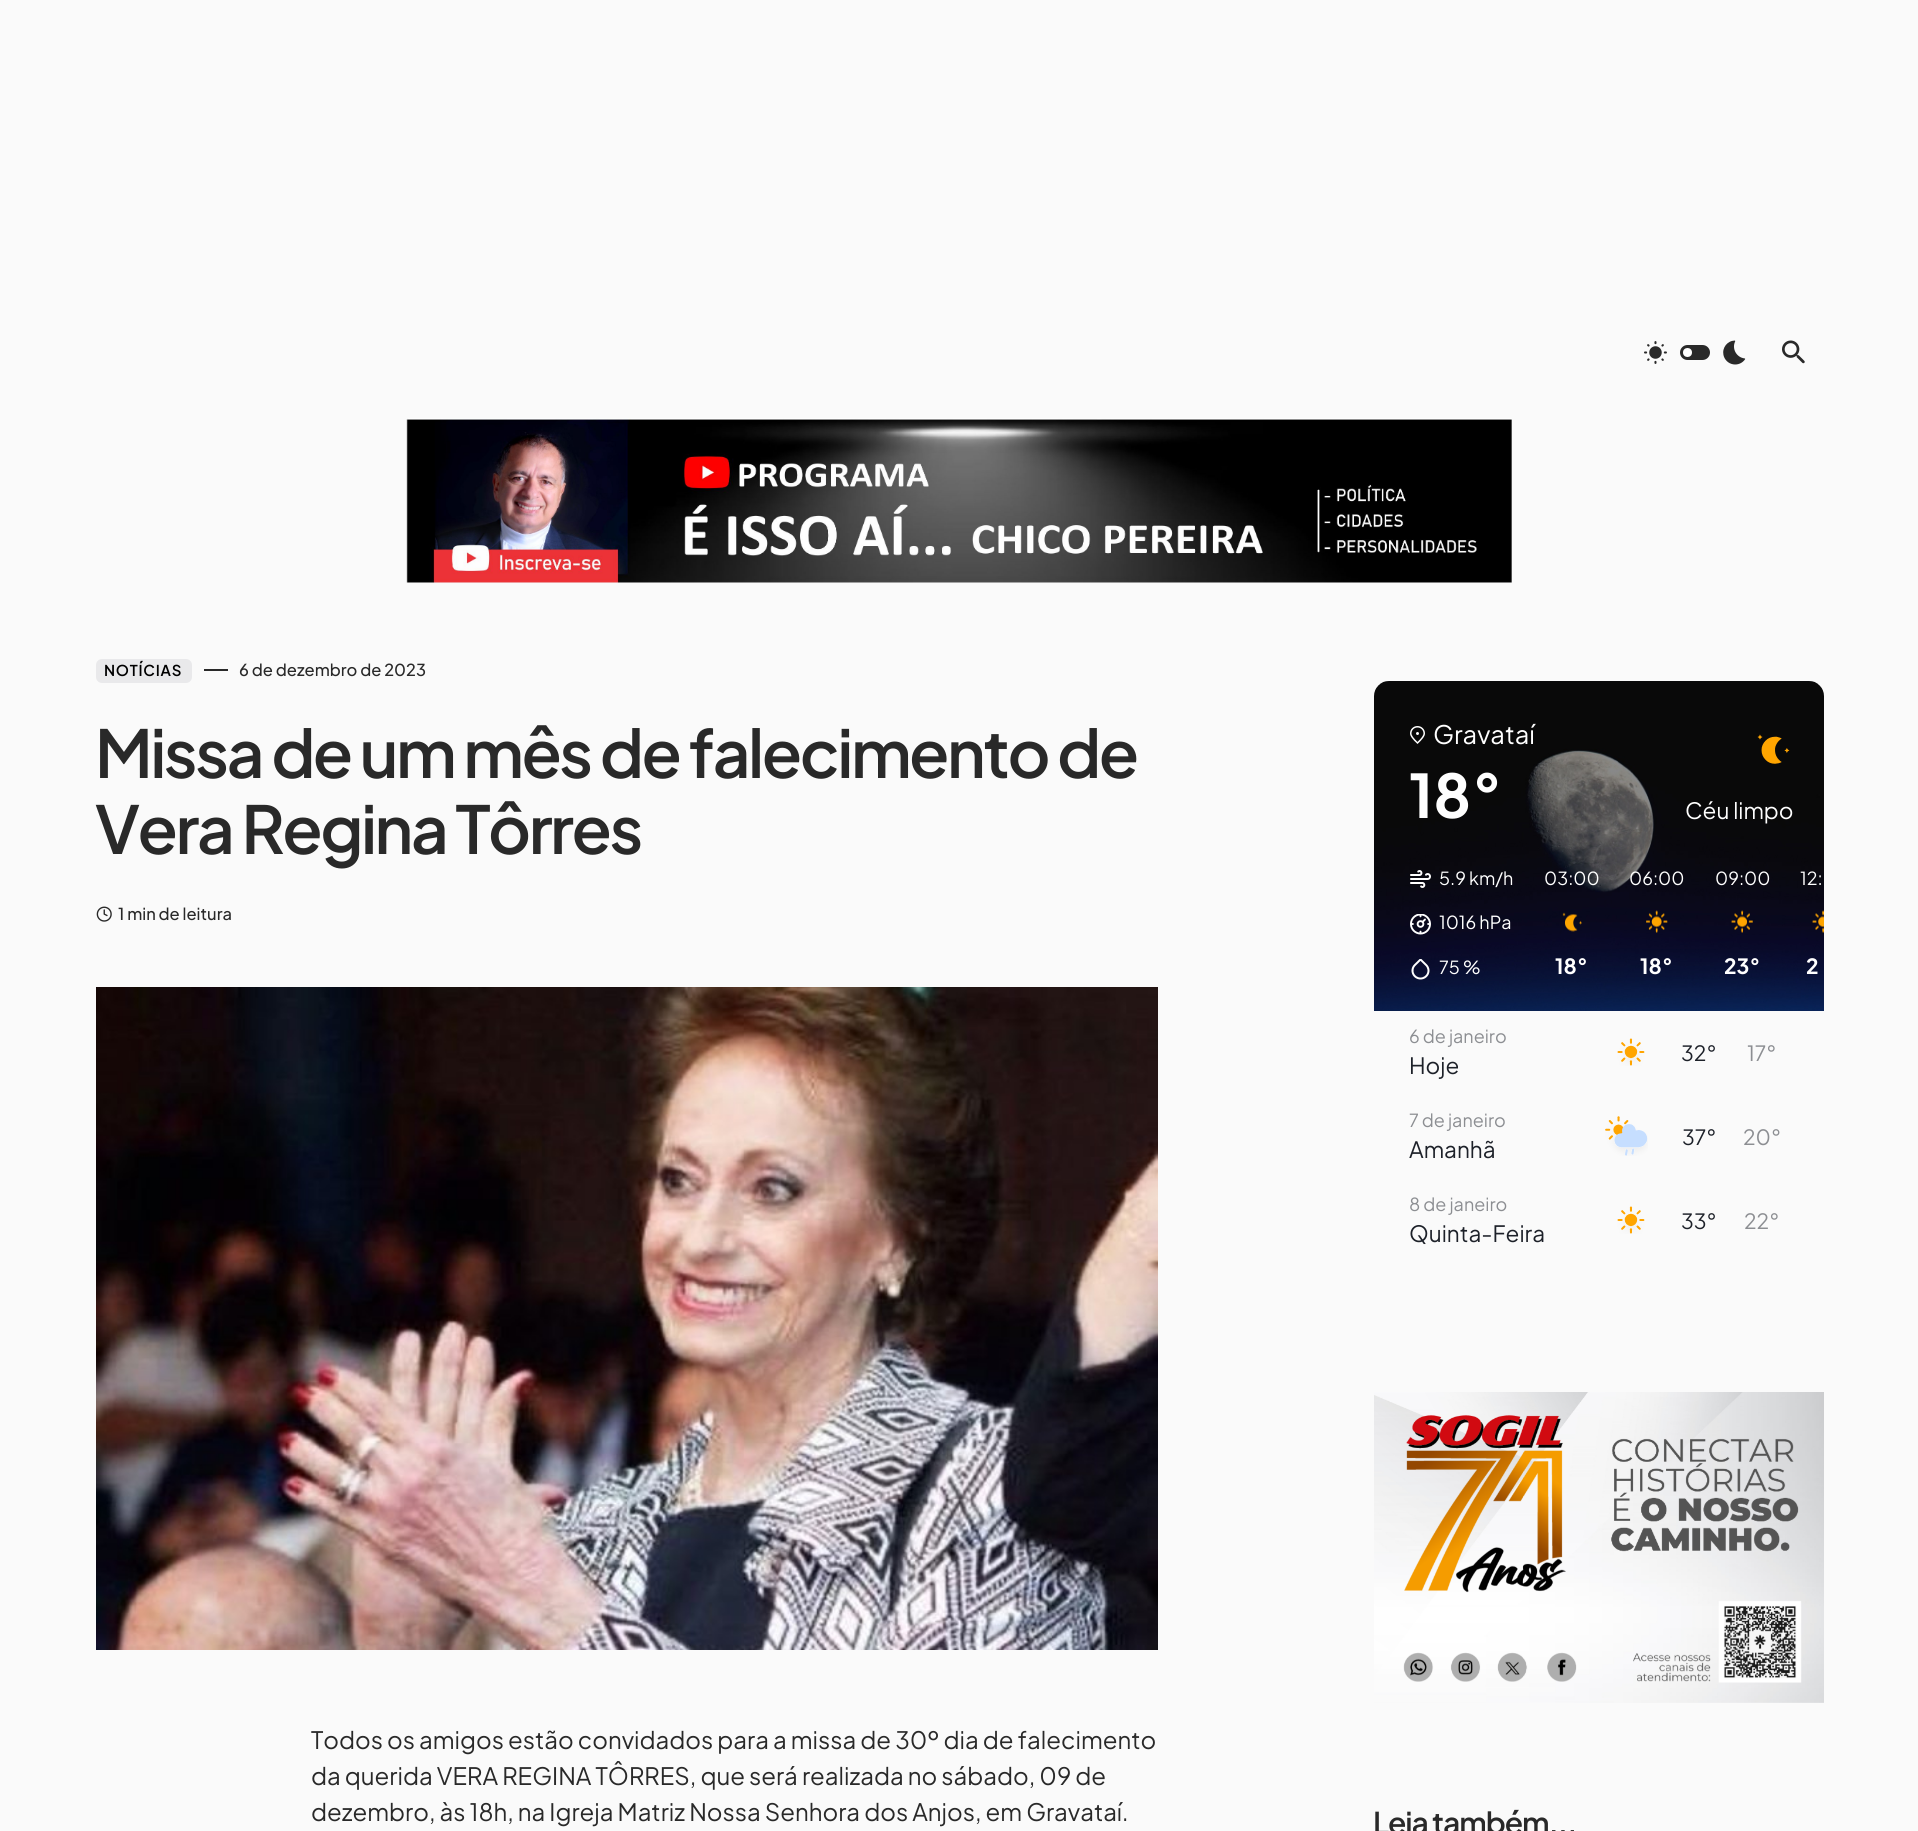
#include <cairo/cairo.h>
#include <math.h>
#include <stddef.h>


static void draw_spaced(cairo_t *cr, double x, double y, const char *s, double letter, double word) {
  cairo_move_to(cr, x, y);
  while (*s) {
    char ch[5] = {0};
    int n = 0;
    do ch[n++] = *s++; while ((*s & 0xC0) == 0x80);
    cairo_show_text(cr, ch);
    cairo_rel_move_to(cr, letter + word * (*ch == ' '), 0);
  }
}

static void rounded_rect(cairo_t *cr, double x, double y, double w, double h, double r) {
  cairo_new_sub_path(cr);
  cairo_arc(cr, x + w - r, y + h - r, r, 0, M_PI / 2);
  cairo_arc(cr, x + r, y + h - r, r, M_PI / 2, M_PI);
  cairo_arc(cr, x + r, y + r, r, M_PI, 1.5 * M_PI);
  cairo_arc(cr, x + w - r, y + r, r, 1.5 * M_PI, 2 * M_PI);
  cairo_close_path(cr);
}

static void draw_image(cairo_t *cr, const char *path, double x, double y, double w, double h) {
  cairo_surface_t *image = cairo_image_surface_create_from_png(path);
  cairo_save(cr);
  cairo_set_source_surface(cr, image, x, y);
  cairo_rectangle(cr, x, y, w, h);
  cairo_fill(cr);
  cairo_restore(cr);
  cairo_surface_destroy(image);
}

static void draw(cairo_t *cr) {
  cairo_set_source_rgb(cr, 250 / 255.0, 250 / 255.0, 250 / 255.0);
  cairo_paint(cr);
  draw_image(cr, "images/1.png", 1644, 341, 23, 23);
  cairo_set_source_rgb(cr, 41 / 255.0, 41 / 255.0, 41 / 255.0);
  rounded_rect(cr, 1680, 345, 30, 15, 7.5);
  cairo_fill(cr);
  cairo_set_source_rgb(cr, 1, 1, 1);
  cairo_arc(cr, 1687.5, 352.5, 4.5, 0, 2 * M_PI);
  cairo_fill(cr);
  draw_image(cr, "images/2.png", 1723, 340, 23, 25);
  draw_image(cr, "images/3.png", 1782, 340, 23, 24);
  draw_image(cr, "images/4.png", 406, 418, 1106, 165);
  cairo_set_source_rgb(cr, 233 / 255.0, 233 / 255.0, 235 / 255.0);
  rounded_rect(cr, 96, 659, 96, 24, 6);
  cairo_fill(cr);
  cairo_set_source_rgb(cr, 41 / 255.0, 41 / 255.0, 41 / 255.0);
  cairo_rectangle(cr, 204, 669, 24, 2);
  cairo_fill(cr);
  draw_image(cr, "images/5.png", 96, 906, 16, 16);
  draw_image(cr, "images/6.png", 96, 987, 1062, 663);
  draw_image(cr, "images/7.png", 1374, 681, 450, 330);
  draw_image(cr, "images/8.png", 1410, 726, 15, 18);
  draw_image(cr, "images/9.png", 1757, 734, 33, 30);
  draw_image(cr, "images/10.png", 1410, 870, 21, 18);
  draw_image(cr, "images/11.png", 1410, 914, 21, 21);
  draw_image(cr, "images/12.png", 1411, 959, 19, 21);
  draw_image(cr, "images/13.png", 1562, 912, 20, 20);
  draw_image(cr, "images/14.png", 1646, 910, 22, 23);
  draw_image(cr, "images/15.png", 1731, 910, 22, 23);
  draw_image(cr, "images/16.png", 1812, 910, 12, 23);
  draw_image(cr, "images/17.png", 1617, 1038, 28, 28);
  draw_image(cr, "images/18.png", 1605, 1116, 43, 40);
  draw_image(cr, "images/17.png", 1617, 1206, 28, 28);
  draw_image(cr, "images/19.png", 1374, 1392, 450, 311);
  cairo_select_font_face(cr, "Plus Jakarta Sans SemiBold", CAIRO_FONT_SLANT_NORMAL, CAIRO_FONT_WEIGHT_NORMAL);
  cairo_set_font_size(cr, 15);
  cairo_set_source_rgb(cr, 0, 0, 0);
  draw_spaced(cr, 104, 676, "NOTÍCIAS", 0.75, 0);
  cairo_select_font_face(cr, "Plus Jakarta Sans Medium", CAIRO_FONT_SLANT_NORMAL, CAIRO_FONT_WEIGHT_NORMAL);
  cairo_set_font_size(cr, 16.5);
  cairo_set_source_rgb(cr, 41 / 255.0, 41 / 255.0, 41 / 255.0);
  cairo_move_to(cr, 239, 676);
  cairo_show_text(cr, "6 de dezembro de 2023");
  cairo_select_font_face(cr, "Plus Jakarta Sans SemiBold", CAIRO_FONT_SLANT_NORMAL, CAIRO_FONT_WEIGHT_NORMAL);
  cairo_set_font_size(cr, 66);
  draw_spaced(cr, 95, 778, "Missa de um mês de falecimento de", -2.5, 0);
  draw_spaced(cr, 95, 854, "Vera Regina Tôrres", -2.5, 0);
  cairo_select_font_face(cr, "Plus Jakarta Sans Medium", CAIRO_FONT_SLANT_NORMAL, CAIRO_FONT_WEIGHT_NORMAL);
  cairo_set_font_size(cr, 16.5);
  cairo_move_to(cr, 118, 920);
  cairo_show_text(cr, "1 min de leitura");
  cairo_select_font_face(cr, "Plus Jakarta Sans", CAIRO_FONT_SLANT_NORMAL, CAIRO_FONT_WEIGHT_NORMAL);
  cairo_set_font_size(cr, 24);
  cairo_move_to(cr, 311, 1749);
  cairo_show_text(cr, "Todos os amigos estão convidados para a missa de 30º dia de falecimento");
  cairo_move_to(cr, 311, 1785);
  cairo_show_text(cr, "da querida VERA REGINA TÔRRES, que será realizada no sábado, 09 de");
  cairo_move_to(cr, 311, 1821);
  cairo_show_text(cr, "dezembro, às 18h, na Igreja Matriz Nossa Senhora dos Anjos, em Gravataí.");
  cairo_set_font_size(cr, 25.5);
  cairo_set_source_rgb(cr, 1, 1, 1);
  cairo_move_to(cr, 1433, 744);
  cairo_show_text(cr, "Gravataí");
  cairo_select_font_face(cr, "Plus Jakarta Sans", CAIRO_FONT_SLANT_NORMAL, CAIRO_FONT_WEIGHT_BOLD);
  cairo_set_font_size(cr, 60);
  cairo_move_to(cr, 1409, 818);
  cairo_show_text(cr, "18°");
  cairo_select_font_face(cr, "Plus Jakarta Sans", CAIRO_FONT_SLANT_NORMAL, CAIRO_FONT_WEIGHT_NORMAL);
  cairo_set_font_size(cr, 22.5);
  cairo_move_to(cr, 1685, 819);
  cairo_show_text(cr, "Céu limpo");
  cairo_set_font_size(cr, 18);
  cairo_move_to(cr, 1439, 885);
  cairo_show_text(cr, "5.9 km/h");
  cairo_move_to(cr, 1439, 929);
  cairo_show_text(cr, "1016 hPa");
  cairo_move_to(cr, 1439, 974);
  cairo_show_text(cr, "75 %");
  cairo_move_to(cr, 1544, 885);
  cairo_show_text(cr, "03:00");
  cairo_select_font_face(cr, "Plus Jakarta Sans", CAIRO_FONT_SLANT_NORMAL, CAIRO_FONT_WEIGHT_BOLD);
  cairo_set_font_size(cr, 21);
  cairo_move_to(cr, 1555, 974);
  cairo_show_text(cr, "18°");
  cairo_select_font_face(cr, "Plus Jakarta Sans", CAIRO_FONT_SLANT_NORMAL, CAIRO_FONT_WEIGHT_NORMAL);
  cairo_set_font_size(cr, 18);
  cairo_move_to(cr, 1629, 885);
  cairo_show_text(cr, "06:00");
  cairo_select_font_face(cr, "Plus Jakarta Sans", CAIRO_FONT_SLANT_NORMAL, CAIRO_FONT_WEIGHT_BOLD);
  cairo_set_font_size(cr, 21);
  cairo_move_to(cr, 1640, 974);
  cairo_show_text(cr, "18°");
  cairo_select_font_face(cr, "Plus Jakarta Sans", CAIRO_FONT_SLANT_NORMAL, CAIRO_FONT_WEIGHT_NORMAL);
  cairo_set_font_size(cr, 18);
  cairo_move_to(cr, 1715, 885);
  cairo_show_text(cr, "09:00");
  cairo_select_font_face(cr, "Plus Jakarta Sans", CAIRO_FONT_SLANT_NORMAL, CAIRO_FONT_WEIGHT_BOLD);
  cairo_set_font_size(cr, 21);
  cairo_move_to(cr, 1724, 974);
  cairo_show_text(cr, "23°");
  cairo_select_font_face(cr, "Plus Jakarta Sans", CAIRO_FONT_SLANT_NORMAL, CAIRO_FONT_WEIGHT_NORMAL);
  cairo_set_font_size(cr, 18);
  cairo_move_to(cr, 1800, 885);
  cairo_show_text(cr, "12:");
  cairo_select_font_face(cr, "Plus Jakarta Sans", CAIRO_FONT_SLANT_NORMAL, CAIRO_FONT_WEIGHT_BOLD);
  cairo_set_font_size(cr, 21);
  cairo_move_to(cr, 1806, 974);
  cairo_show_text(cr, "2");
  cairo_select_font_face(cr, "Plus Jakarta Sans", CAIRO_FONT_SLANT_NORMAL, CAIRO_FONT_WEIGHT_NORMAL);
  cairo_set_font_size(cr, 18);
  cairo_set_source_rgb(cr, 140 / 255.0, 142 / 255.0, 146 / 255.0);
  cairo_move_to(cr, 1409, 1043);
  cairo_show_text(cr, "6 de janeiro");
  cairo_set_font_size(cr, 22.5);
  cairo_set_source_rgb(cr, 29 / 255.0, 33 / 255.0, 41 / 255.0);
  cairo_move_to(cr, 1409, 1074);
  cairo_show_text(cr, "Hoje");
  cairo_set_font_size(cr, 21);
  cairo_move_to(cr, 1681, 1061);
  cairo_show_text(cr, "32°");
  cairo_set_source_rgb(cr, 140 / 255.0, 142 / 255.0, 146 / 255.0);
  cairo_move_to(cr, 1747, 1061);
  cairo_show_text(cr, "17°");
  cairo_set_font_size(cr, 18);
  cairo_move_to(cr, 1409, 1127);
  cairo_show_text(cr, "7 de janeiro");
  cairo_set_font_size(cr, 22.5);
  cairo_set_source_rgb(cr, 29 / 255.0, 33 / 255.0, 41 / 255.0);
  cairo_move_to(cr, 1409, 1158);
  cairo_show_text(cr, "Amanhã");
  cairo_set_font_size(cr, 21);
  cairo_move_to(cr, 1682, 1145);
  cairo_show_text(cr, "37°");
  cairo_set_source_rgb(cr, 140 / 255.0, 142 / 255.0, 146 / 255.0);
  cairo_move_to(cr, 1743, 1145);
  cairo_show_text(cr, "20°");
  cairo_set_font_size(cr, 18);
  cairo_move_to(cr, 1409, 1211);
  cairo_show_text(cr, "8 de janeiro");
  cairo_set_font_size(cr, 22.5);
  cairo_set_source_rgb(cr, 29 / 255.0, 33 / 255.0, 41 / 255.0);
  cairo_move_to(cr, 1409, 1242);
  cairo_show_text(cr, "Quinta-Feira");
  cairo_set_font_size(cr, 21);
  cairo_move_to(cr, 1681, 1229);
  cairo_show_text(cr, "33°");
  cairo_set_source_rgb(cr, 140 / 255.0, 142 / 255.0, 146 / 255.0);
  cairo_move_to(cr, 1744, 1229);
  cairo_show_text(cr, "22°");
  cairo_select_font_face(cr, "Plus Jakarta Sans SemiBold", CAIRO_FONT_SLANT_NORMAL, CAIRO_FONT_WEIGHT_NORMAL);
  cairo_set_font_size(cr, 30);
  cairo_set_source_rgb(cr, 41 / 255.0, 41 / 255.0, 41 / 255.0);
  draw_spaced(cr, 1373, 1834, "Leia também...", -1.1, 0);
}

int main(void) {
  cairo_surface_t *surface = cairo_image_surface_create(CAIRO_FORMAT_RGB24, 1918, 1831);
  cairo_t *cr = cairo_create(surface);
  cairo_font_options_t *options = cairo_font_options_create();
  cairo_font_options_set_hint_metrics(options, CAIRO_HINT_METRICS_OFF);
  cairo_font_options_set_hint_style(options, CAIRO_HINT_STYLE_NONE);
  cairo_set_font_options(cr, options);
  cairo_set_miter_limit(cr, 4);
  draw(cr);
  cairo_surface_write_to_png(surface, "out.png");
  cairo_font_options_destroy(options);
  cairo_destroy(cr);
  cairo_surface_destroy(surface);
  return 0;
}
